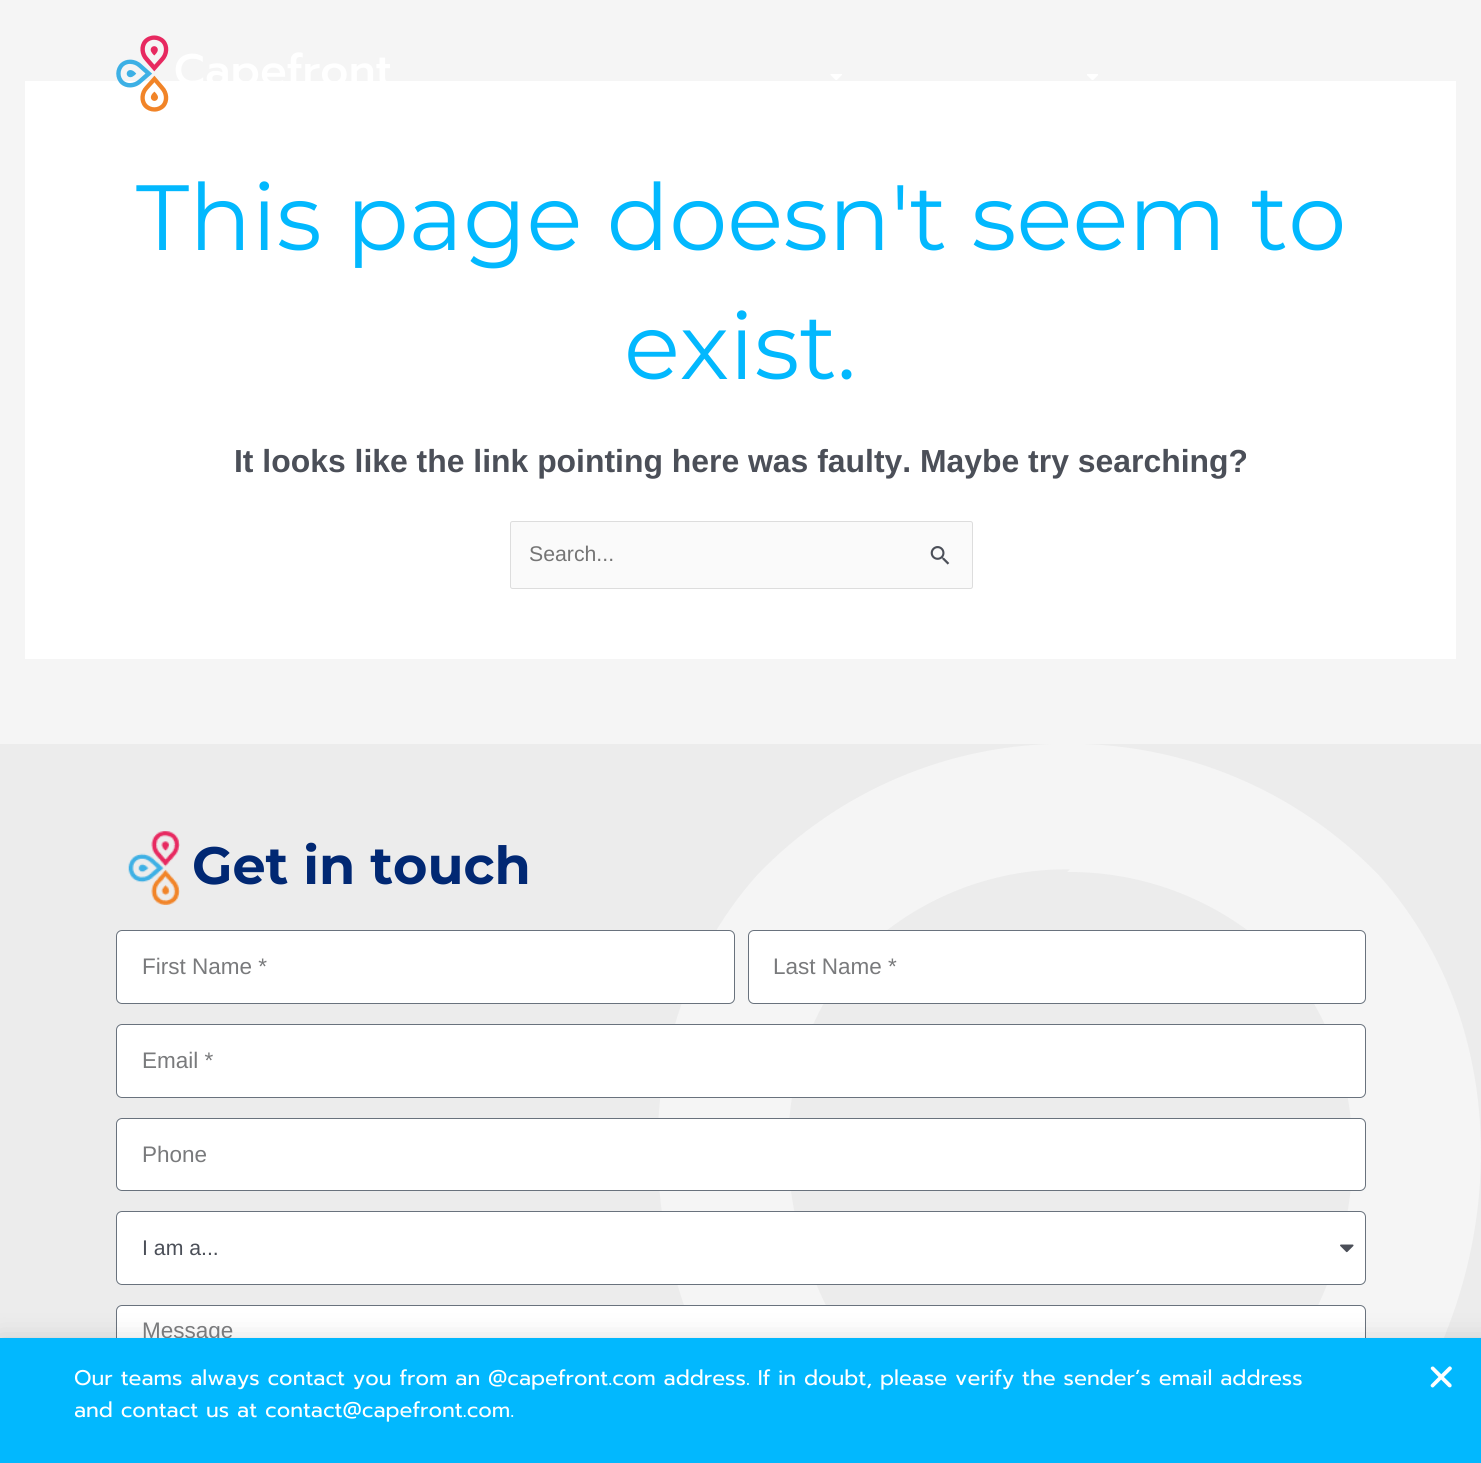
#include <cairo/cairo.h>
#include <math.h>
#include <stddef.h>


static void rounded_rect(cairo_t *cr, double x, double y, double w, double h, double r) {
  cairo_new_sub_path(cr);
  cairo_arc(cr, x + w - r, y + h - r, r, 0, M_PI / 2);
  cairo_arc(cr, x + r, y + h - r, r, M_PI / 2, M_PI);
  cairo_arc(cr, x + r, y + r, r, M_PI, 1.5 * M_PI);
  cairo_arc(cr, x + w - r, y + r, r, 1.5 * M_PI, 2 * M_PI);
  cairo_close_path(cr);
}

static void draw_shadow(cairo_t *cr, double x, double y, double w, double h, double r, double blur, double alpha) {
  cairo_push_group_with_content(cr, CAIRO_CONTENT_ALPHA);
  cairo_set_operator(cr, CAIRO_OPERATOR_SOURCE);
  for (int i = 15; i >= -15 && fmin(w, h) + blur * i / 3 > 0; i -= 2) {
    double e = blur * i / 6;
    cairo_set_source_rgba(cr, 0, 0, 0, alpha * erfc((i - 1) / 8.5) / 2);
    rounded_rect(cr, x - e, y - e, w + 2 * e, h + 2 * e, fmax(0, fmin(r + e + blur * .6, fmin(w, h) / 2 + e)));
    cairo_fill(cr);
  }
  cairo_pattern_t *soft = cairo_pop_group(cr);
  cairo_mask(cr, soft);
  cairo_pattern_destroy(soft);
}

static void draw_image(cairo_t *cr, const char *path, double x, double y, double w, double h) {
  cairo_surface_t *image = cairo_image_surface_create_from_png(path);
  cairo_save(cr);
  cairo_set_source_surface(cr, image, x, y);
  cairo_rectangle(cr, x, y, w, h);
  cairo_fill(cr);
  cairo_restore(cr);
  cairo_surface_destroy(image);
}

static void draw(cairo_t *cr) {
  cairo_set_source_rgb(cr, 245 / 255.0, 245 / 255.0, 245 / 255.0);
  cairo_paint(cr);
  cairo_set_source_rgb(cr, 1, 1, 1);
  cairo_rectangle(cr, 25, 81, 1431, 578);
  cairo_fill(cr);
  draw_image(cr, "images/1.png", 116, 35, 274, 77);
  draw_image(cr, "images/2.png", 830, 74, 12, 6);
  draw_image(cr, "images/3.png", 1087, 74, 11, 6);
  cairo_set_source_rgb(cr, 250 / 255.0, 250 / 255.0, 250 / 255.0);
  rounded_rect(cr, 510.5, 521.5, 462, 67, 2);
  cairo_fill_preserve(cr);
  cairo_set_source_rgb(cr, 221 / 255.0, 221 / 255.0, 221 / 255.0);
  cairo_set_line_width(cr, 1);
  cairo_stroke(cr);
  draw_image(cr, "images/4.png", 930, 546, 20, 19);
  cairo_set_source_rgb(cr, 236 / 255.0, 236 / 255.0, 236 / 255.0);
  cairo_rectangle(cr, 0, 744, 1481, 594);
  cairo_fill(cr);
  draw_image(cr, "images/5.png", 658, 744, 823, 594);
  draw_image(cr, "images/6.png", 128, 831, 52, 74);
  cairo_set_source_rgb(cr, 1, 1, 1);
  rounded_rect(cr, 116.5, 930.5, 618, 73, 5.5);
  cairo_fill_preserve(cr);
  cairo_set_source_rgb(cr, 105 / 255.0, 114 / 255.0, 125 / 255.0);
  cairo_stroke(cr);
  cairo_set_source_rgb(cr, 1, 1, 1);
  rounded_rect(cr, 748.5, 930.5, 617, 73, 5.5);
  cairo_fill_preserve(cr);
  cairo_set_source_rgb(cr, 105 / 255.0, 114 / 255.0, 125 / 255.0);
  cairo_stroke(cr);
  cairo_set_source_rgb(cr, 1, 1, 1);
  rounded_rect(cr, 116.5, 1024.5, 1249, 73, 5.5);
  cairo_fill_preserve(cr);
  cairo_set_source_rgb(cr, 105 / 255.0, 114 / 255.0, 125 / 255.0);
  cairo_stroke(cr);
  cairo_set_source_rgb(cr, 1, 1, 1);
  rounded_rect(cr, 116.5, 1118.5, 1249, 72, 5.5);
  cairo_fill_preserve(cr);
  cairo_set_source_rgb(cr, 105 / 255.0, 114 / 255.0, 125 / 255.0);
  cairo_stroke(cr);
  cairo_set_source_rgb(cr, 1, 1, 1);
  rounded_rect(cr, 116.5, 1211.5, 1249, 73, 5.5);
  cairo_fill_preserve(cr);
  cairo_set_source_rgb(cr, 105 / 255.0, 114 / 255.0, 125 / 255.0);
  cairo_stroke(cr);
  draw_image(cr, "images/7.png", 1340, 1244, 14, 9);
  cairo_set_source_rgb(cr, 1, 1, 1);
  rounded_rect(cr, 116.5, 1305.5, 1249, 145, 5.5);
  cairo_fill_preserve(cr);
  cairo_set_source_rgb(cr, 105 / 255.0, 114 / 255.0, 125 / 255.0);
  cairo_stroke(cr);
  cairo_set_source_rgb(cr, 0, 0, 0);
  draw_shadow(cr, -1, 1344, 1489, 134, 0, 14.5, 0.2);
  cairo_select_font_face(cr, "Montserrat", CAIRO_FONT_SLANT_NORMAL, CAIRO_FONT_WEIGHT_NORMAL);
  cairo_set_font_size(cr, 92.5);
  cairo_set_source_rgb(cr, 2 / 255.0, 184 / 255.0, 254 / 255.0);
  cairo_move_to(cr, 136, 250);
  cairo_show_text(cr, "This page doesn't seem to");
  cairo_move_to(cr, 624, 379);
  cairo_show_text(cr, "exist.");
  cairo_select_font_face(cr, "Liberation Sans", CAIRO_FONT_SLANT_NORMAL, CAIRO_FONT_WEIGHT_BOLD);
  cairo_set_font_size(cr, 31.9);
  cairo_set_source_rgb(cr, 75 / 255.0, 79 / 255.0, 88 / 255.0);
  cairo_move_to(cr, 234, 472);
  cairo_show_text(cr, "It looks like the link pointing here was faulty. Maybe try searching?");
  cairo_select_font_face(cr, "Liberation Sans", CAIRO_FONT_SLANT_NORMAL, CAIRO_FONT_WEIGHT_NORMAL);
  cairo_set_font_size(cr, 21.25);
  cairo_set_source_rgb(cr, 117 / 255.0, 117 / 255.0, 117 / 255.0);
  cairo_move_to(cr, 529, 561);
  cairo_show_text(cr, "Search...");
  cairo_select_font_face(cr, "Montserrat", CAIRO_FONT_SLANT_NORMAL, CAIRO_FONT_WEIGHT_BOLD);
  cairo_set_font_size(cr, 52.5);
  cairo_set_source_rgb(cr, 1 / 255.0, 40 / 255.0, 115 / 255.0);
  cairo_move_to(cr, 192, 884);
  cairo_show_text(cr, "Get in touch");
  cairo_select_font_face(cr, "Liberation Sans", CAIRO_FONT_SLANT_NORMAL, CAIRO_FONT_WEIGHT_NORMAL);
  cairo_set_font_size(cr, 22.5);
  cairo_set_source_rgb(cr, 121 / 255.0, 122 / 255.0, 124 / 255.0);
  cairo_move_to(cr, 142, 974);
  cairo_show_text(cr, "First Name *");
  cairo_move_to(cr, 773, 974);
  cairo_show_text(cr, "Last Name *");
  cairo_move_to(cr, 142, 1068);
  cairo_show_text(cr, "Email *");
  cairo_move_to(cr, 142, 1162);
  cairo_show_text(cr, "Phone");
  cairo_set_font_size(cr, 21.25);
  cairo_set_source_rgb(cr, 75 / 255.0, 79 / 255.0, 88 / 255.0);
  cairo_move_to(cr, 142, 1255);
  cairo_show_text(cr, "I am a...");
  cairo_set_font_size(cr, 22.5);
  cairo_set_source_rgb(cr, 121 / 255.0, 122 / 255.0, 124 / 255.0);
  cairo_move_to(cr, 142, 1338);
  cairo_show_text(cr, "Message");
  cairo_set_source_rgb(cr, 2 / 255.0, 184 / 255.0, 254 / 255.0);
  cairo_rectangle(cr, 0, 1338, 1481, 125);
  cairo_fill(cr);
  cairo_select_font_face(cr, "Prompt", CAIRO_FONT_SLANT_NORMAL, CAIRO_FONT_WEIGHT_NORMAL);
  cairo_set_font_size(cr, 21.25);
  cairo_set_source_rgb(cr, 1, 1, 1);
  cairo_move_to(cr, 74, 1385);
  cairo_show_text(cr, "Our teams always contact you from an @capefront.com address. If in doubt, please verify the sender’s email address");
  cairo_move_to(cr, 74, 1417);
  cairo_show_text(cr, "and contact us at contact@capefront.com.");
  draw_image(cr, "images/8.png", 1430, 1366, 22, 22);
}

int main(void) {
  cairo_surface_t *surface = cairo_image_surface_create(CAIRO_FORMAT_RGB24, 1481, 1463);
  cairo_t *cr = cairo_create(surface);
  cairo_font_options_t *options = cairo_font_options_create();
  cairo_font_options_set_hint_metrics(options, CAIRO_HINT_METRICS_OFF);
  cairo_font_options_set_hint_style(options, CAIRO_HINT_STYLE_NONE);
  cairo_set_font_options(cr, options);
  cairo_set_miter_limit(cr, 4);
  draw(cr);
  cairo_surface_write_to_png(surface, "out.png");
  cairo_font_options_destroy(options);
  cairo_destroy(cr);
  cairo_surface_destroy(surface);
  return 0;
}
